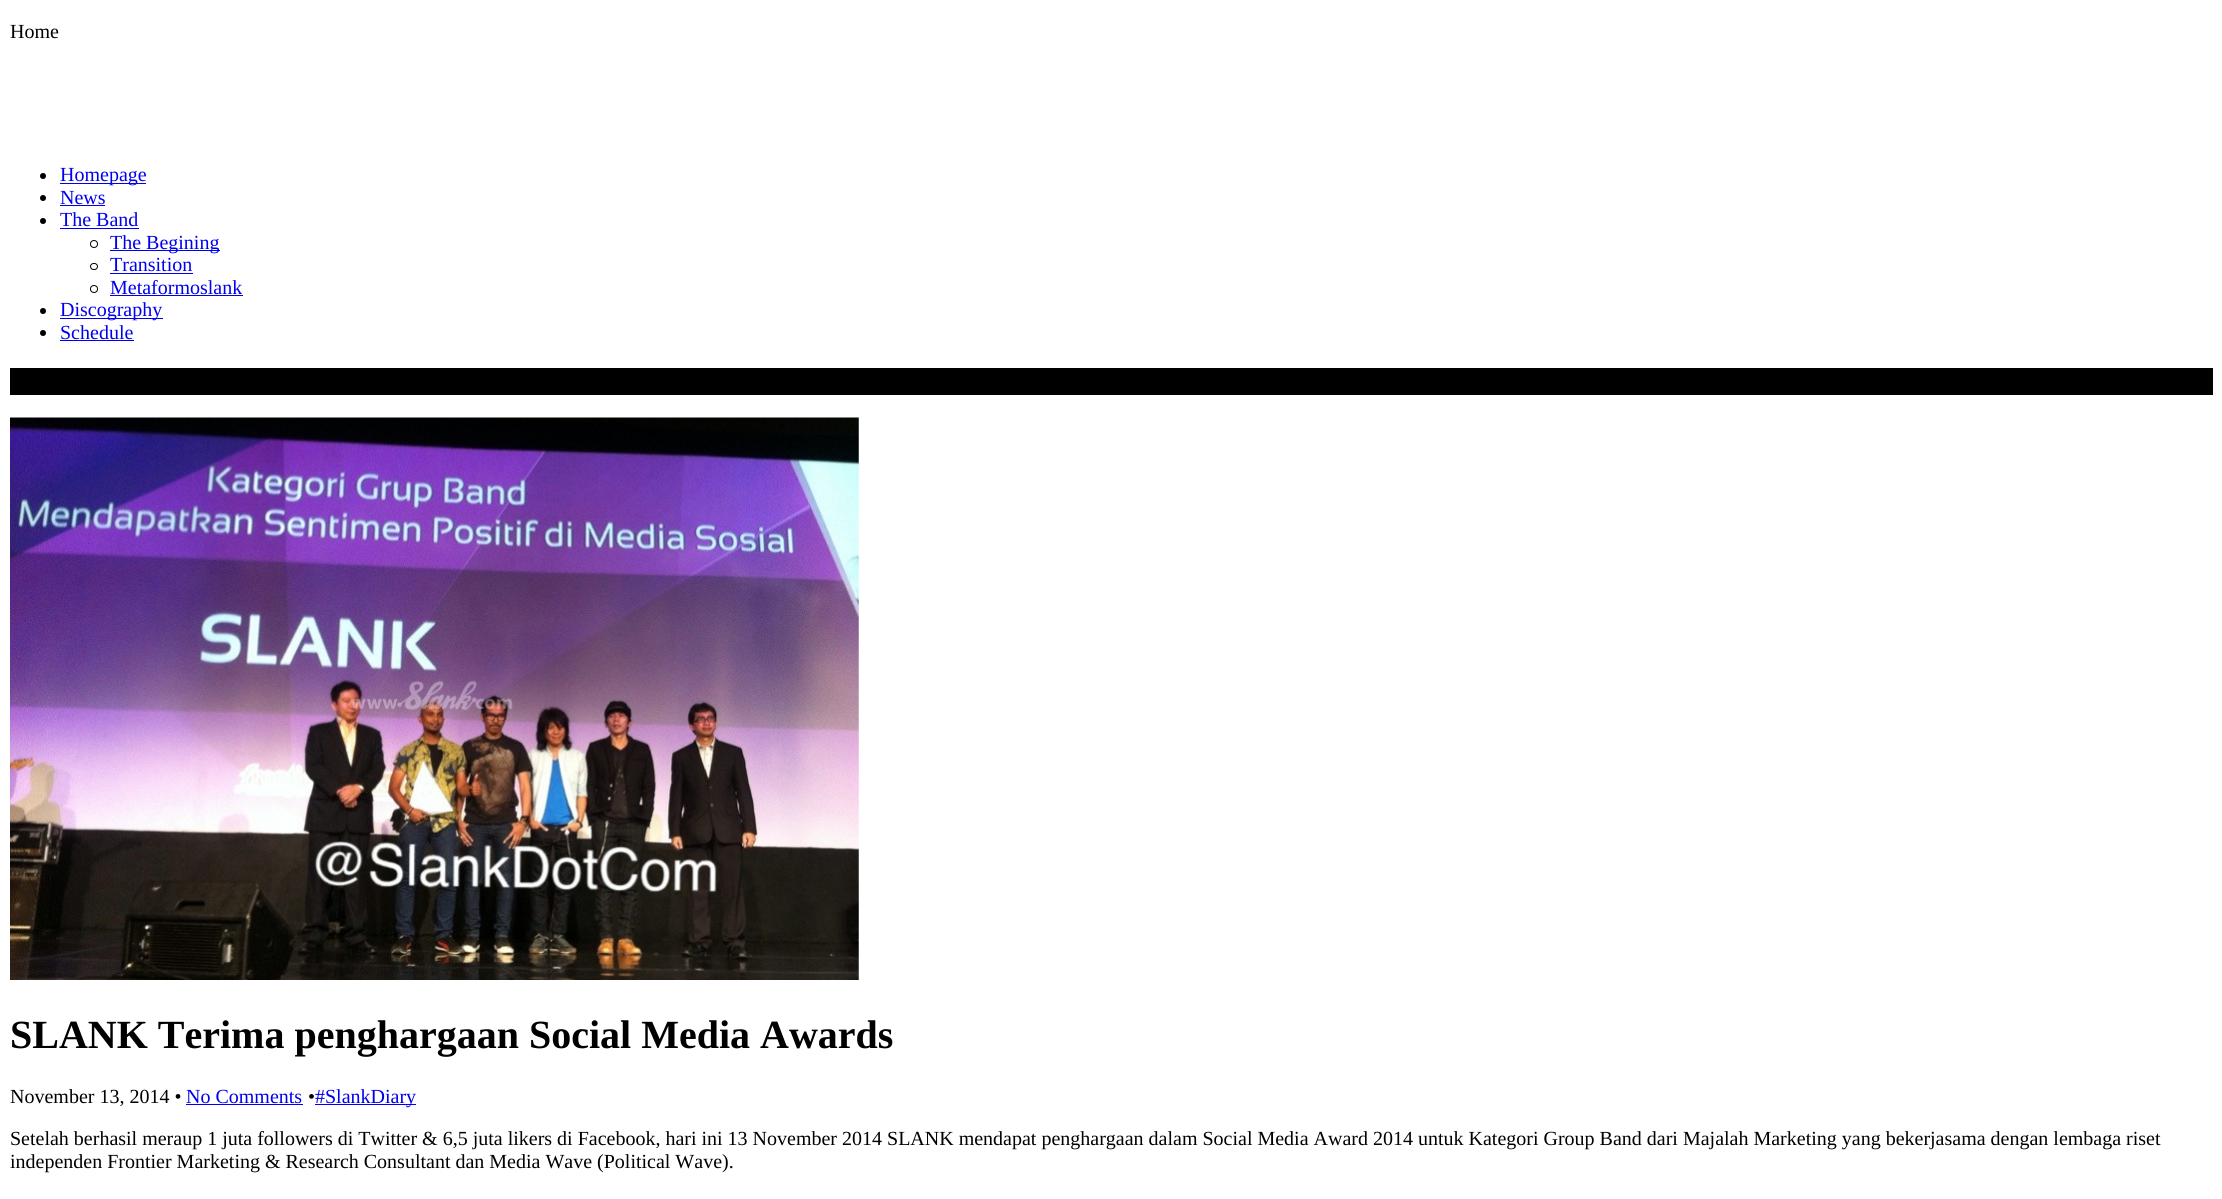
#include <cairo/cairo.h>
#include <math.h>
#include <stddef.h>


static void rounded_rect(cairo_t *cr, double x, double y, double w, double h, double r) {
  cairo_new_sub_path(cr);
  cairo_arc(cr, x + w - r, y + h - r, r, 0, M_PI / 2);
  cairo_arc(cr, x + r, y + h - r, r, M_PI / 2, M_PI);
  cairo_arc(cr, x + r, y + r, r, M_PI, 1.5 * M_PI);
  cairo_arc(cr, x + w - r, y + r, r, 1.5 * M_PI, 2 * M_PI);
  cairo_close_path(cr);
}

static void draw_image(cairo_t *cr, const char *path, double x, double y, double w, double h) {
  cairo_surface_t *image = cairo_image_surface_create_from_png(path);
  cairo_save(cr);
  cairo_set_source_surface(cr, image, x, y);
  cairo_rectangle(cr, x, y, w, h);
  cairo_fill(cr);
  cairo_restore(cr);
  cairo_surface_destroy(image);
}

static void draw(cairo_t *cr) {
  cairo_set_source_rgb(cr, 1, 1, 1);
  cairo_paint(cr);
  cairo_set_source_rgb(cr, 0, 0, 0);
  cairo_arc(cr, 43, 176, 3, 0, 2 * M_PI);
  cairo_fill(cr);
  cairo_set_source_rgb(cr, 0, 0, 238 / 255.0);
  cairo_rectangle(cr, 60, 183, 86, 1);
  cairo_fill(cr);
  cairo_set_source_rgb(cr, 0, 0, 0);
  cairo_arc(cr, 43, 198, 3, 0, 2 * M_PI);
  cairo_fill(cr);
  cairo_set_source_rgb(cr, 0, 0, 238 / 255.0);
  cairo_rectangle(cr, 60, 205, 45, 1);
  cairo_fill(cr);
  cairo_set_source_rgb(cr, 0, 0, 0);
  cairo_arc(cr, 43, 221, 3, 0, 2 * M_PI);
  cairo_fill(cr);
  cairo_set_source_rgb(cr, 0, 0, 238 / 255.0);
  cairo_rectangle(cr, 60, 228, 79, 1);
  cairo_fill(cr);
  cairo_arc(cr, 94, 244, 3.5, 0, 2 * M_PI);
  cairo_set_source_rgb(cr, 0, 0, 0);
  cairo_set_line_width(cr, 1);
  cairo_stroke(cr);
  cairo_set_source_rgb(cr, 0, 0, 238 / 255.0);
  cairo_rectangle(cr, 110, 250, 110, 1);
  cairo_fill(cr);
  rounded_rect(cr, 90.5, 263.5, 7, 6, 3);
  cairo_set_source_rgb(cr, 0, 0, 0);
  cairo_stroke(cr);
  cairo_set_source_rgb(cr, 0, 0, 238 / 255.0);
  cairo_rectangle(cr, 110, 273, 83, 1);
  cairo_fill(cr);
  cairo_arc(cr, 94, 289, 3.5, 0, 2 * M_PI);
  cairo_set_source_rgb(cr, 0, 0, 0);
  cairo_stroke(cr);
  cairo_set_source_rgb(cr, 0, 0, 238 / 255.0);
  cairo_rectangle(cr, 110, 295, 133, 1);
  cairo_fill(cr);
  cairo_set_source_rgb(cr, 0, 0, 0);
  cairo_arc(cr, 43, 311, 3, 0, 2 * M_PI);
  cairo_fill(cr);
  cairo_set_source_rgb(cr, 0, 0, 238 / 255.0);
  cairo_rectangle(cr, 60, 318, 103, 1);
  cairo_fill(cr);
  cairo_set_source_rgb(cr, 0, 0, 0);
  cairo_arc(cr, 43, 333, 3, 0, 2 * M_PI);
  cairo_fill(cr);
  cairo_set_source_rgb(cr, 0, 0, 238 / 255.0);
  cairo_rectangle(cr, 60, 340, 74, 1);
  cairo_fill(cr);
  cairo_set_source_rgb(cr, 0, 0, 0);
  cairo_rectangle(cr, 10, 368, 2203, 27);
  cairo_fill(cr);
  draw_image(cr, "images/1.png", 10, 417, 849, 563);
  cairo_set_source_rgb(cr, 0, 0, 238 / 255.0);
  cairo_rectangle(cr, 186, 1104, 117, 1);
  cairo_fill(cr);
  cairo_rectangle(cr, 315, 1104, 101, 1);
  cairo_fill(cr);
  cairo_select_font_face(cr, "Liberation Serif", CAIRO_FONT_SLANT_NORMAL, CAIRO_FONT_WEIGHT_NORMAL);
  cairo_set_font_size(cr, 20);
  cairo_set_source_rgb(cr, 0, 0, 0);
  cairo_move_to(cr, 10, 38);
  cairo_show_text(cr, "Home");
  cairo_set_source_rgb(cr, 0, 0, 238 / 255.0);
  cairo_move_to(cr, 60, 181);
  cairo_show_text(cr, "Homepage");
  cairo_move_to(cr, 60, 204);
  cairo_show_text(cr, "News");
  cairo_move_to(cr, 60, 226);
  cairo_show_text(cr, "The Band");
  cairo_move_to(cr, 110, 249);
  cairo_show_text(cr, "The Begining");
  cairo_move_to(cr, 110, 271);
  cairo_show_text(cr, "Transition");
  cairo_move_to(cr, 110, 294);
  cairo_show_text(cr, "Metaformoslank");
  cairo_move_to(cr, 60, 316);
  cairo_show_text(cr, "Discography");
  cairo_move_to(cr, 60, 339);
  cairo_show_text(cr, "Schedule");
  cairo_select_font_face(cr, "Liberation Serif", CAIRO_FONT_SLANT_NORMAL, CAIRO_FONT_WEIGHT_BOLD);
  cairo_set_font_size(cr, 40);
  cairo_set_source_rgb(cr, 0, 0, 0);
  cairo_move_to(cr, 10, 1048);
  cairo_show_text(cr, "SLANK Terima penghargaan Social Media Awards");
  cairo_select_font_face(cr, "Liberation Serif", CAIRO_FONT_SLANT_NORMAL, CAIRO_FONT_WEIGHT_NORMAL);
  cairo_set_font_size(cr, 20);
  cairo_move_to(cr, 10, 1103);
  cairo_show_text(cr, "November 13, 2014 •");
  cairo_set_source_rgb(cr, 0, 0, 238 / 255.0);
  cairo_move_to(cr, 186, 1103);
  cairo_show_text(cr, "No Comments");
  cairo_set_source_rgb(cr, 0, 0, 0);
  cairo_move_to(cr, 308, 1103);
  cairo_show_text(cr, "•");
  cairo_set_source_rgb(cr, 0, 0, 238 / 255.0);
  cairo_move_to(cr, 315, 1103);
  cairo_show_text(cr, "#SlankDiary");
  cairo_set_source_rgb(cr, 0, 0, 0);
  cairo_move_to(cr, 10, 1145);
  cairo_show_text(cr, "Setelah berhasil meraup 1 juta followers di Twitter & 6,5 juta likers di Facebook, hari ini 13 November 2014 SLANK mendapat penghargaan dalam Social Media Award 2014 untuk Kategori Group Band dari Majalah Marketing yang bekerjasama dengan lembaga riset");
  cairo_move_to(cr, 10, 1168);
  cairo_show_text(cr, "independen Frontier Marketing & Research Consultant dan Media Wave (Political Wave).");
}

int main(void) {
  cairo_surface_t *surface = cairo_image_surface_create(CAIRO_FORMAT_RGB24, 2222, 1199);
  cairo_t *cr = cairo_create(surface);
  cairo_font_options_t *options = cairo_font_options_create();
  cairo_font_options_set_hint_metrics(options, CAIRO_HINT_METRICS_OFF);
  cairo_font_options_set_hint_style(options, CAIRO_HINT_STYLE_NONE);
  cairo_set_font_options(cr, options);
  cairo_set_miter_limit(cr, 4);
  draw(cr);
  cairo_surface_write_to_png(surface, "out.png");
  cairo_font_options_destroy(options);
  cairo_destroy(cr);
  cairo_surface_destroy(surface);
  return 0;
}
